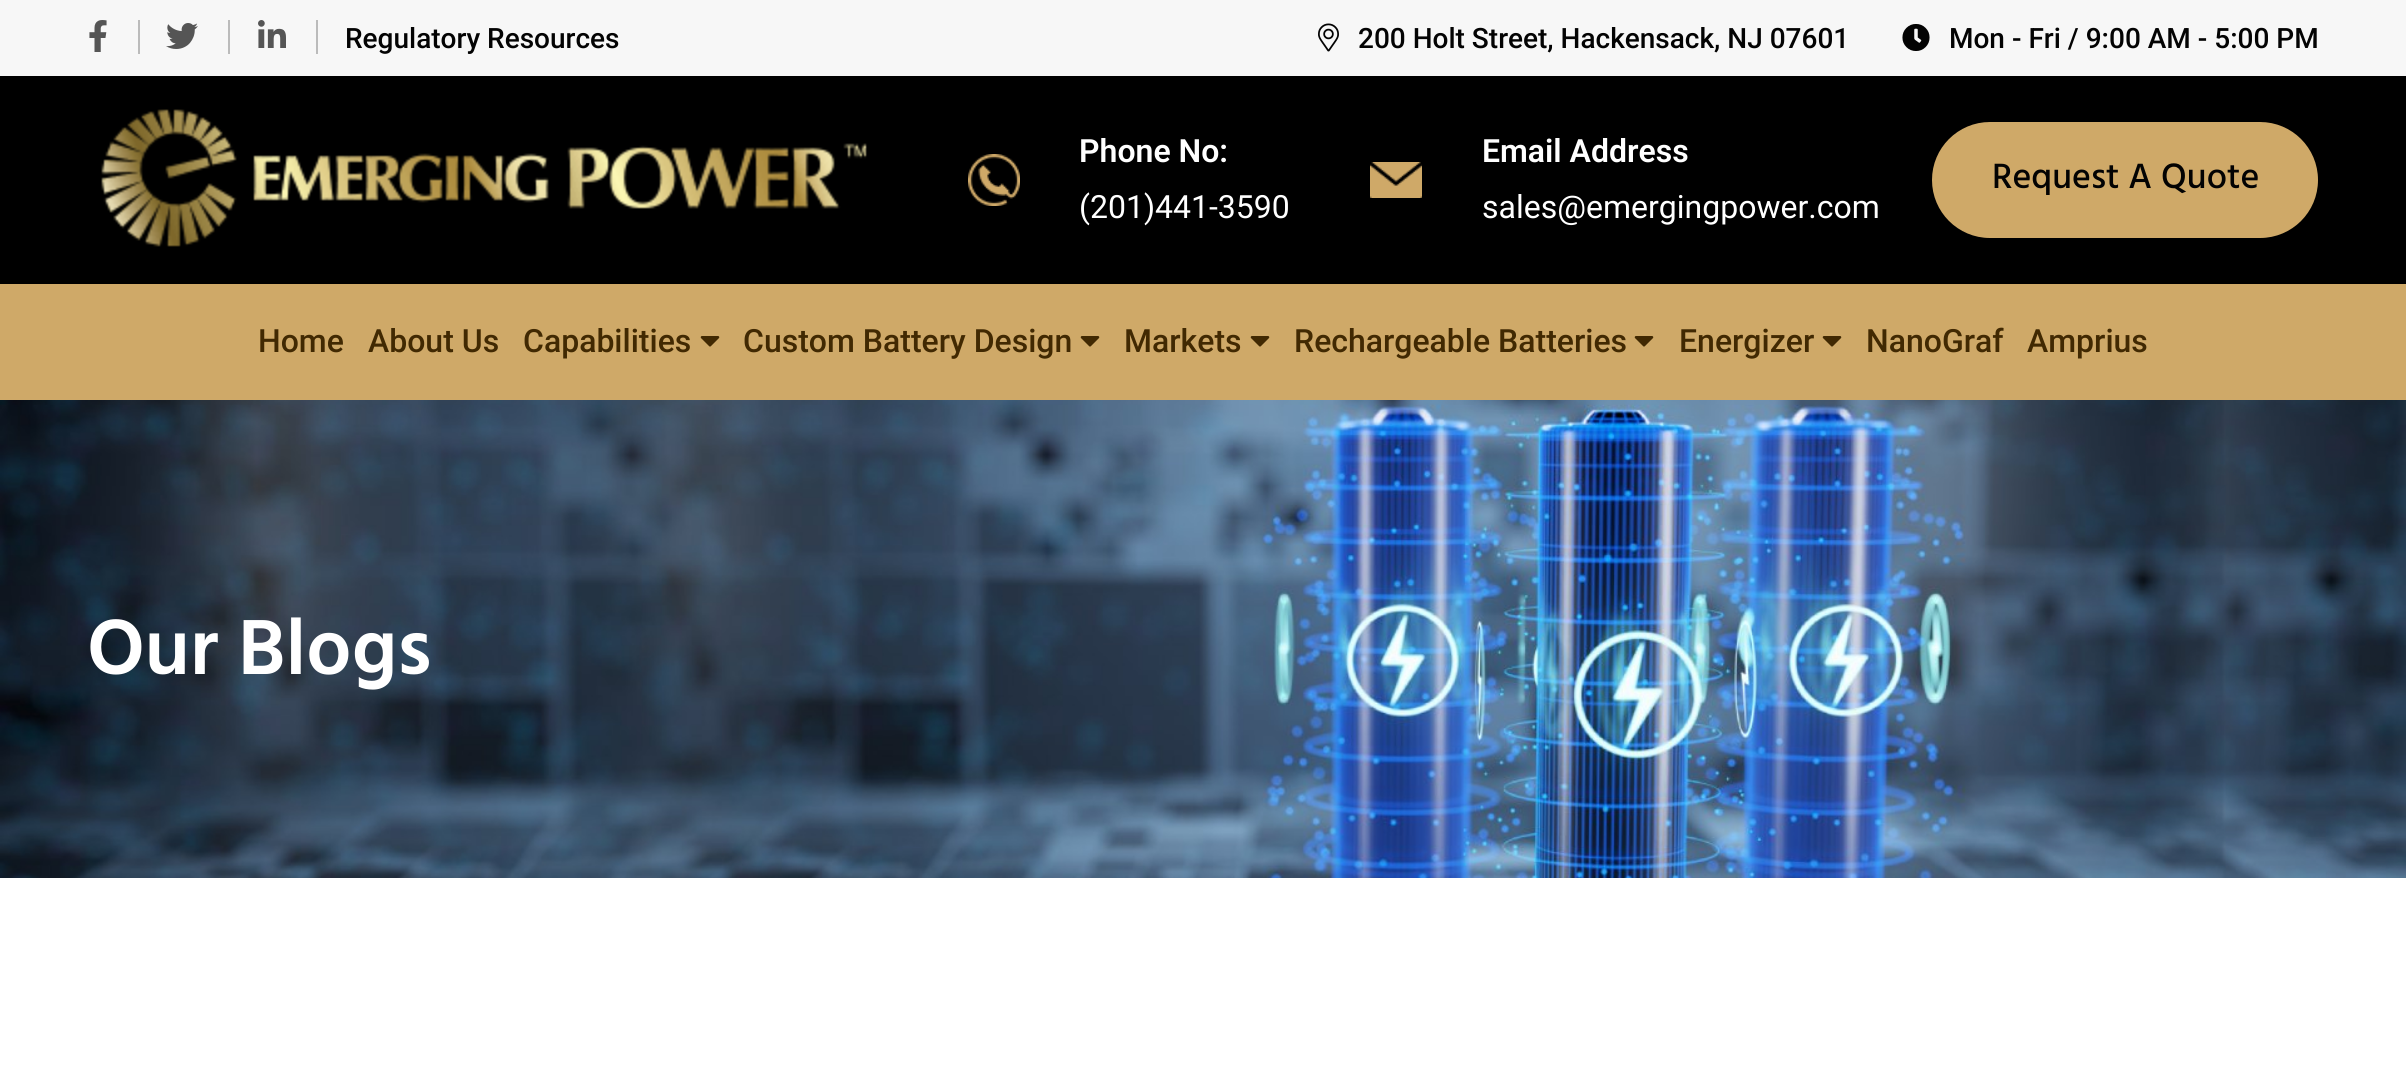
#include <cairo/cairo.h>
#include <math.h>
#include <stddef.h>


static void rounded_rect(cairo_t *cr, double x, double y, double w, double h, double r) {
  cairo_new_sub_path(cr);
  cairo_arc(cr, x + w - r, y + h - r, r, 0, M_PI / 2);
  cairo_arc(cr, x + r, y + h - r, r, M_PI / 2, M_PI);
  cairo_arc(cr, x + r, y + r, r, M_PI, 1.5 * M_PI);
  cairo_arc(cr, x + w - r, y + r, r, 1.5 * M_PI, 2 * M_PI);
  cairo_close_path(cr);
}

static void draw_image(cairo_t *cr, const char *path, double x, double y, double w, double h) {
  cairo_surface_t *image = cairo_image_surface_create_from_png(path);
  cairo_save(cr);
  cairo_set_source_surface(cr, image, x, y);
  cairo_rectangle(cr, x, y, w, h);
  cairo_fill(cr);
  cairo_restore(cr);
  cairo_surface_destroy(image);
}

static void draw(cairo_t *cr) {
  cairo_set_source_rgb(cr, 1, 1, 1);
  cairo_paint(cr);
  cairo_set_source_rgb(cr, 247 / 255.0, 247 / 255.0, 247 / 255.0);
  cairo_rectangle(cr, 0, 0, 2406, 76);
  cairo_fill(cr);
  cairo_set_source_rgb(cr, 187 / 255.0, 187 / 255.0, 187 / 255.0);
  cairo_rectangle(cr, 138, 20, 2, 34);
  cairo_fill(cr);
  draw_image(cr, "images/1.png", 89, 20, 18, 32);
  cairo_rectangle(cr, 228, 20, 2, 34);
  cairo_fill(cr);
  draw_image(cr, "images/2.png", 166, 23, 32, 26);
  cairo_rectangle(cr, 316, 20, 2, 34);
  cairo_fill(cr);
  draw_image(cr, "images/3.png", 258, 20, 28, 28);
  draw_image(cr, "images/4.png", 1318, 23, 21, 29);
  draw_image(cr, "images/5.png", 1902, 24, 28, 27);
  cairo_set_source_rgb(cr, 0, 0, 0);
  cairo_rectangle(cr, 0, 76, 2406, 208);
  cairo_fill(cr);
  draw_image(cr, "images/6.png", 101, 109, 766, 138);
  draw_image(cr, "images/7.png", 968, 154, 52, 52);
  draw_image(cr, "images/8.png", 1370, 162, 52, 36);
  cairo_set_source_rgb(cr, 207 / 255.0, 169 / 255.0, 104 / 255.0);
  rounded_rect(cr, 1932, 122, 386, 116, 58);
  cairo_fill(cr);
  cairo_rectangle(cr, 0, 284, 2406, 116);
  cairo_fill(cr);
  draw_image(cr, "images/9.png", 700, 336, 20, 11);
  draw_image(cr, "images/9.png", 1080, 336, 20, 11);
  draw_image(cr, "images/9.png", 1250, 336, 20, 11);
  draw_image(cr, "images/9.png", 1634, 336, 20, 11);
  draw_image(cr, "images/9.png", 1822, 336, 20, 11);
  draw_image(cr, "images/10.png", 0, 400, 2406, 478);
  cairo_select_font_face(cr, "Roboto Medium", CAIRO_FONT_SLANT_NORMAL, CAIRO_FONT_WEIGHT_NORMAL);
  cairo_set_font_size(cr, 28);
  cairo_set_source_rgb(cr, 3 / 255.0, 3 / 255.0, 3 / 255.0);
  cairo_move_to(cr, 345, 48);
  cairo_show_text(cr, "Regulatory Resources");
  cairo_move_to(cr, 1358, 48);
  cairo_show_text(cr, "200 Holt Street, Hackensack, NJ 07601");
  cairo_move_to(cr, 1949, 48);
  cairo_show_text(cr, "Mon - Fri / 9:00 AM - 5:00 PM");
  cairo_select_font_face(cr, "Roboto SemiBold", CAIRO_FONT_SLANT_NORMAL, CAIRO_FONT_WEIGHT_NORMAL);
  cairo_set_font_size(cr, 32);
  cairo_set_source_rgb(cr, 1, 1, 1);
  cairo_move_to(cr, 1079, 162);
  cairo_show_text(cr, "Phone No:");
  cairo_select_font_face(cr, "Roboto", CAIRO_FONT_SLANT_NORMAL, CAIRO_FONT_WEIGHT_NORMAL);
  cairo_move_to(cr, 1079, 218);
  cairo_show_text(cr, "(201)441-3590");
  cairo_select_font_face(cr, "Roboto SemiBold", CAIRO_FONT_SLANT_NORMAL, CAIRO_FONT_WEIGHT_NORMAL);
  cairo_move_to(cr, 1482, 162);
  cairo_show_text(cr, "Email Address");
  cairo_select_font_face(cr, "Roboto", CAIRO_FONT_SLANT_NORMAL, CAIRO_FONT_WEIGHT_NORMAL);
  cairo_move_to(cr, 1482, 218);
  cairo_show_text(cr, "sales@emergingpower.com");
  cairo_select_font_face(cr, "Hind Medium", CAIRO_FONT_SLANT_NORMAL, CAIRO_FONT_WEIGHT_NORMAL);
  cairo_set_font_size(cr, 36);
  cairo_set_source_rgb(cr, 3 / 255.0, 3 / 255.0, 3 / 255.0);
  cairo_move_to(cr, 1992, 188);
  cairo_show_text(cr, "Request A Quote");
  cairo_select_font_face(cr, "Roboto Medium", CAIRO_FONT_SLANT_NORMAL, CAIRO_FONT_WEIGHT_NORMAL);
  cairo_set_font_size(cr, 32);
  cairo_set_source_rgb(cr, 65 / 255.0, 41 / 255.0, 2 / 255.0);
  cairo_move_to(cr, 258, 352);
  cairo_show_text(cr, "Home");
  cairo_move_to(cr, 368, 352);
  cairo_show_text(cr, "About Us");
  cairo_move_to(cr, 523, 352);
  cairo_show_text(cr, "Capabilities");
  cairo_move_to(cr, 743, 352);
  cairo_show_text(cr, "Custom Battery Design");
  cairo_move_to(cr, 1124, 352);
  cairo_show_text(cr, "Markets");
  cairo_move_to(cr, 1294, 352);
  cairo_show_text(cr, "Rechargeable Batteries");
  cairo_move_to(cr, 1679, 352);
  cairo_show_text(cr, "Energizer");
  cairo_move_to(cr, 1866, 352);
  cairo_show_text(cr, "NanoGraf");
  cairo_move_to(cr, 2027, 352);
  cairo_show_text(cr, "Amprius");
  cairo_select_font_face(cr, "Hind SemiBold", CAIRO_FONT_SLANT_NORMAL, CAIRO_FONT_WEIGHT_NORMAL);
  cairo_set_font_size(cr, 80);
  cairo_set_source_rgb(cr, 1, 1, 1);
  cairo_move_to(cr, 87, 674);
  cairo_show_text(cr, "Our Blogs");
}

int main(void) {
  cairo_surface_t *surface = cairo_image_surface_create(CAIRO_FORMAT_RGB24, 2406, 1068);
  cairo_t *cr = cairo_create(surface);
  cairo_font_options_t *options = cairo_font_options_create();
  cairo_font_options_set_hint_metrics(options, CAIRO_HINT_METRICS_OFF);
  cairo_font_options_set_hint_style(options, CAIRO_HINT_STYLE_NONE);
  cairo_set_font_options(cr, options);
  cairo_set_miter_limit(cr, 4);
  draw(cr);
  cairo_surface_write_to_png(surface, "out.png");
  cairo_font_options_destroy(options);
  cairo_destroy(cr);
  cairo_surface_destroy(surface);
  return 0;
}
